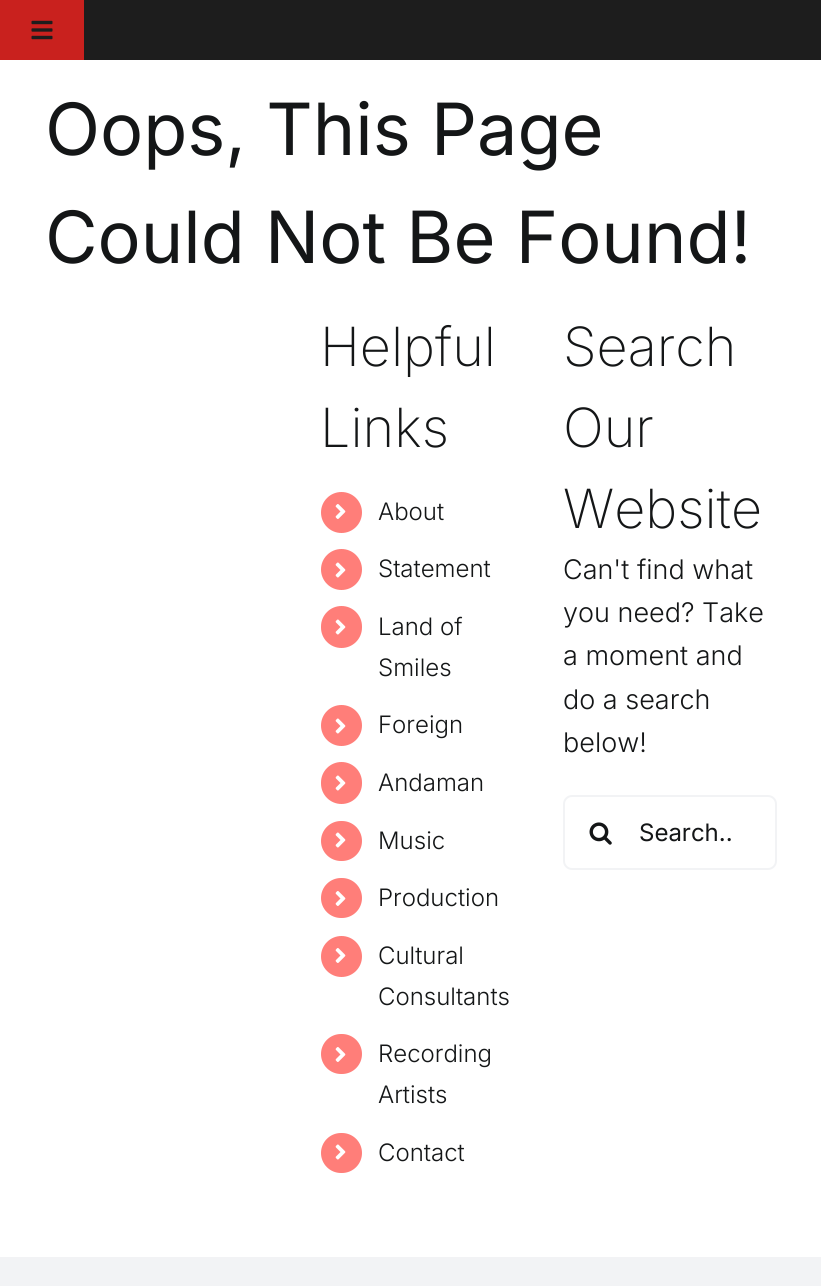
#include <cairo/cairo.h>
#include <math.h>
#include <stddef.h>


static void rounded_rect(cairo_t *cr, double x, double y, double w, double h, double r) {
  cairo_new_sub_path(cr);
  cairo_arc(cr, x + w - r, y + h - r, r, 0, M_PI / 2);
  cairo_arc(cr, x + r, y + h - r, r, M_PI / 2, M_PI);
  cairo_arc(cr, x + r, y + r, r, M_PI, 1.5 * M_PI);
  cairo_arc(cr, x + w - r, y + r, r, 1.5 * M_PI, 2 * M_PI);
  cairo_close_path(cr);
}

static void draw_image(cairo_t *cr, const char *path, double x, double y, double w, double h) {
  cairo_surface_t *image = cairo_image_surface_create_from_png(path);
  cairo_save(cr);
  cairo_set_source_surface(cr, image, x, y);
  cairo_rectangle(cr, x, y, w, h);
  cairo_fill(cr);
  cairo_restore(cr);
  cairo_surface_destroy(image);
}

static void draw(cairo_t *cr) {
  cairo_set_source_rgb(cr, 242 / 255.0, 243 / 255.0, 245 / 255.0);
  cairo_paint(cr);
  cairo_set_source_rgb(cr, 1, 1, 1);
  cairo_rectangle(cr, 0, 60, 821, 1197);
  cairo_fill(cr);
  cairo_set_source_rgb(cr, 29 / 255.0, 29 / 255.0, 29 / 255.0);
  cairo_rectangle(cr, 84, 0, 737, 60);
  cairo_fill(cr);
  cairo_set_source_rgb(cr, 201 / 255.0, 33 / 255.0, 30 / 255.0);
  cairo_rectangle(cr, 0, 0, 84, 60);
  cairo_fill(cr);
  draw_image(cr, "images/1.png", 31, 20, 22, 20);
  cairo_set_source_rgb(cr, 1, 126 / 255.0, 121 / 255.0);
  cairo_arc(cr, 341.5, 512.5, 20.5, 0, 2 * M_PI);
  cairo_fill(cr);
  draw_image(cr, "images/2.png", 335, 504, 11, 15);
  cairo_arc(cr, 341.5, 569.5, 20.5, 0, 2 * M_PI);
  cairo_fill(cr);
  draw_image(cr, "images/3.png", 335, 562, 11, 16);
  rounded_rect(cr, 321, 606, 41, 42, 20.5);
  cairo_fill(cr);
  draw_image(cr, "images/3.png", 335, 619, 11, 16);
  cairo_arc(cr, 341.5, 725.5, 20.5, 0, 2 * M_PI);
  cairo_fill(cr);
  draw_image(cr, "images/3.png", 335, 718, 11, 16);
  rounded_rect(cr, 321, 762, 41, 42, 20.5);
  cairo_fill(cr);
  draw_image(cr, "images/3.png", 335, 775, 11, 16);
  rounded_rect(cr, 321, 821, 41, 40, 20);
  cairo_fill(cr);
  draw_image(cr, "images/3.png", 335, 832, 11, 16);
  rounded_rect(cr, 321, 878, 41, 40, 20);
  cairo_fill(cr);
  draw_image(cr, "images/2.png", 335, 891, 11, 15);
  cairo_arc(cr, 341.5, 956.5, 20.5, 0, 2 * M_PI);
  cairo_fill(cr);
  draw_image(cr, "images/2.png", 335, 948, 11, 15);
  rounded_rect(cr, 321, 1034, 41, 40, 20);
  cairo_fill(cr);
  draw_image(cr, "images/2.png", 335, 1047, 11, 15);
  rounded_rect(cr, 321, 1133, 41, 40, 20);
  cairo_fill(cr);
  draw_image(cr, "images/3.png", 335, 1144, 11, 16);
  rounded_rect(cr, 564, 796, 212, 73, 8);
  cairo_set_source_rgb(cr, 242 / 255.0, 243 / 255.0, 245 / 255.0);
  cairo_stroke(cr);
  draw_image(cr, "images/4.png", 589, 822, 23, 23);
  cairo_select_font_face(cr, "Inter", CAIRO_FONT_SLANT_NORMAL, CAIRO_FONT_WEIGHT_NORMAL);
  cairo_set_font_size(cr, 72);
  cairo_set_source_rgb(cr, 20 / 255.0, 22 / 255.0, 23 / 255.0);
  cairo_move_to(cr, 45, 155);
  cairo_show_text(cr, "Oops, This Page");
  cairo_move_to(cr, 45, 263);
  cairo_show_text(cr, "Could Not Be Found!");
  cairo_select_font_face(cr, "Inter ExtraLight", CAIRO_FONT_SLANT_NORMAL, CAIRO_FONT_WEIGHT_NORMAL);
  cairo_set_font_size(cr, 54);
  cairo_move_to(cr, 320, 366);
  cairo_show_text(cr, "Helpful");
  cairo_move_to(cr, 320, 447);
  cairo_show_text(cr, "Links");
  cairo_select_font_face(cr, "Inter Light", CAIRO_FONT_SLANT_NORMAL, CAIRO_FONT_WEIGHT_NORMAL);
  cairo_set_font_size(cr, 24);
  cairo_move_to(cr, 378, 520);
  cairo_show_text(cr, "About");
  cairo_move_to(cr, 378, 577);
  cairo_show_text(cr, "Statement");
  cairo_move_to(cr, 378, 635);
  cairo_show_text(cr, "Land of");
  cairo_move_to(cr, 378, 676);
  cairo_show_text(cr, "Smiles");
  cairo_move_to(cr, 378, 733);
  cairo_show_text(cr, "Foreign");
  cairo_move_to(cr, 378, 791);
  cairo_show_text(cr, "Andaman");
  cairo_move_to(cr, 378, 849);
  cairo_show_text(cr, "Music");
  cairo_move_to(cr, 378, 906);
  cairo_show_text(cr, "Production");
  cairo_move_to(cr, 378, 964);
  cairo_show_text(cr, "Cultural");
  cairo_move_to(cr, 378, 1005);
  cairo_show_text(cr, "Consultants");
  cairo_move_to(cr, 378, 1062);
  cairo_show_text(cr, "Recording");
  cairo_move_to(cr, 378, 1103);
  cairo_show_text(cr, "Artists");
  cairo_move_to(cr, 378, 1161);
  cairo_show_text(cr, "Contact");
  cairo_select_font_face(cr, "Inter ExtraLight", CAIRO_FONT_SLANT_NORMAL, CAIRO_FONT_WEIGHT_NORMAL);
  cairo_set_font_size(cr, 54);
  cairo_move_to(cr, 563, 366);
  cairo_show_text(cr, "Search");
  cairo_move_to(cr, 563, 447);
  cairo_show_text(cr, "Our");
  cairo_move_to(cr, 563, 528);
  cairo_show_text(cr, "Website");
  cairo_select_font_face(cr, "Inter Light", CAIRO_FONT_SLANT_NORMAL, CAIRO_FONT_WEIGHT_NORMAL);
  cairo_set_font_size(cr, 27);
  cairo_move_to(cr, 563, 579);
  cairo_show_text(cr, "Can't find what");
  cairo_move_to(cr, 563, 622);
  cairo_show_text(cr, "you need? Take");
  cairo_move_to(cr, 563, 665);
  cairo_show_text(cr, "a moment and");
  cairo_move_to(cr, 563, 709);
  cairo_show_text(cr, "do a search");
  cairo_move_to(cr, 563, 752);
  cairo_show_text(cr, "below!");
  cairo_select_font_face(cr, "Inter", CAIRO_FONT_SLANT_NORMAL, CAIRO_FONT_WEIGHT_NORMAL);
  cairo_set_font_size(cr, 24);
  cairo_move_to(cr, 639, 841);
  cairo_show_text(cr, "Search..");
}

int main(void) {
  cairo_surface_t *surface = cairo_image_surface_create(CAIRO_FORMAT_RGB24, 821, 1286);
  cairo_t *cr = cairo_create(surface);
  cairo_font_options_t *options = cairo_font_options_create();
  cairo_font_options_set_hint_metrics(options, CAIRO_HINT_METRICS_OFF);
  cairo_font_options_set_hint_style(options, CAIRO_HINT_STYLE_NONE);
  cairo_set_font_options(cr, options);
  cairo_set_miter_limit(cr, 4);
  draw(cr);
  cairo_surface_write_to_png(surface, "out.png");
  cairo_font_options_destroy(options);
  cairo_destroy(cr);
  cairo_surface_destroy(surface);
  return 0;
}
